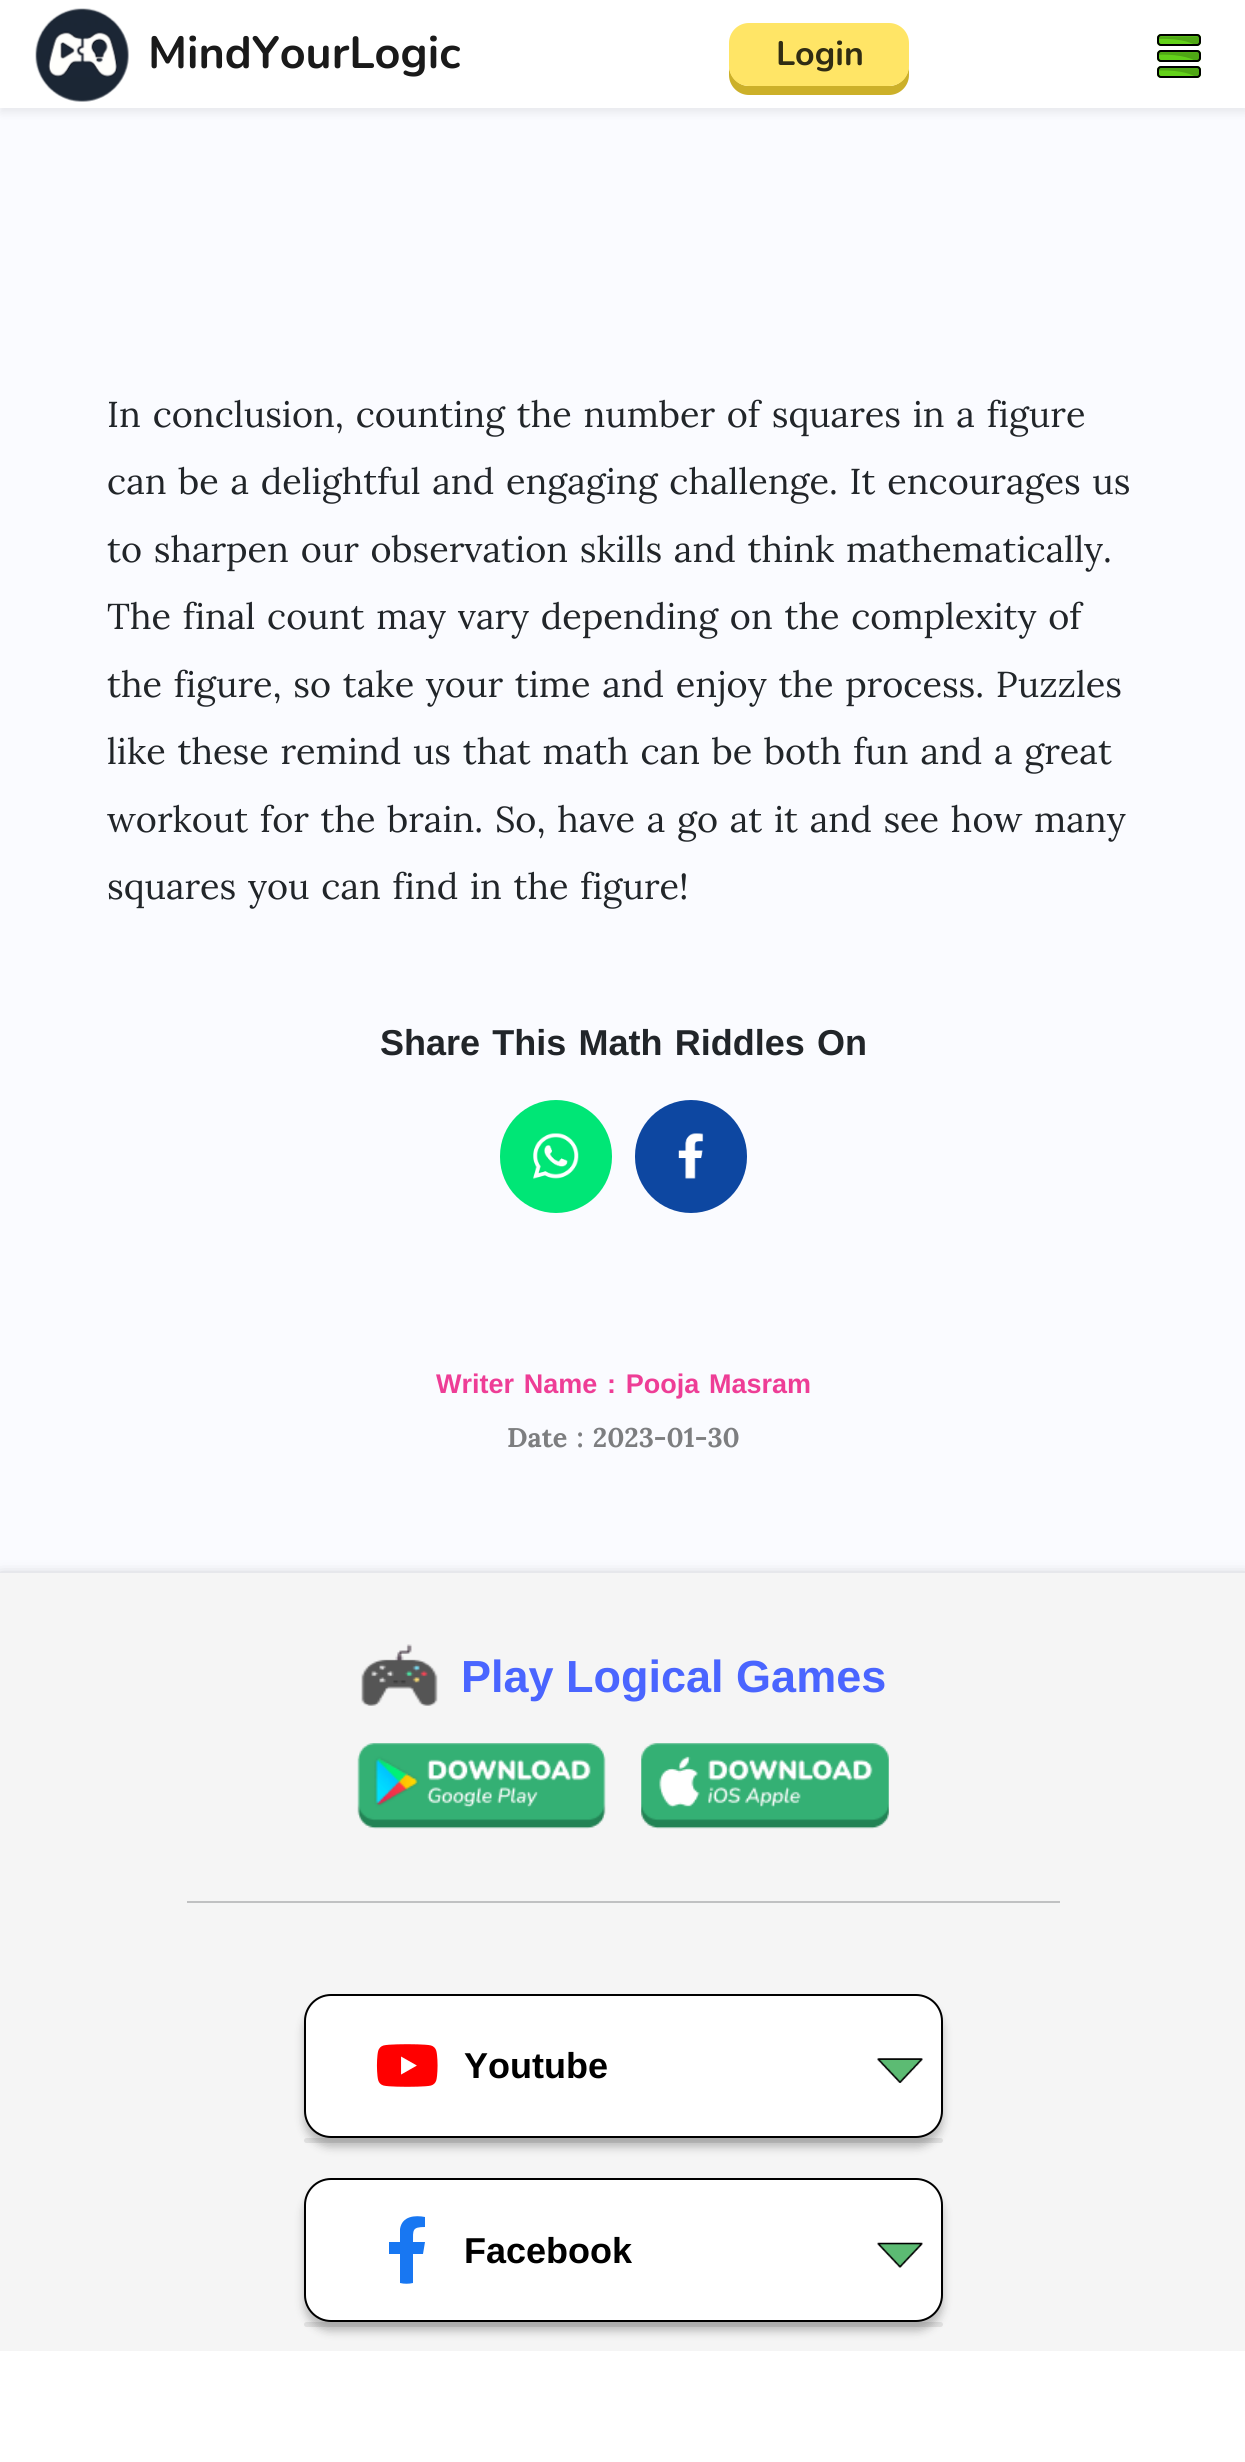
#include <cairo/cairo.h>
#include <math.h>
#include <stddef.h>


static void draw_spaced(cairo_t *cr, double x, double y, const char *s, double letter, double word) {
  cairo_move_to(cr, x, y);
  while (*s) {
    char ch[5] = {0};
    int n = 0;
    do ch[n++] = *s++; while ((*s & 0xC0) == 0x80);
    cairo_show_text(cr, ch);
    cairo_rel_move_to(cr, letter + word * (*ch == ' '), 0);
  }
}

static void rounded_rect(cairo_t *cr, double x, double y, double w, double h, double r) {
  cairo_new_sub_path(cr);
  cairo_arc(cr, x + w - r, y + h - r, r, 0, M_PI / 2);
  cairo_arc(cr, x + r, y + h - r, r, M_PI / 2, M_PI);
  cairo_arc(cr, x + r, y + r, r, M_PI, 1.5 * M_PI);
  cairo_arc(cr, x + w - r, y + r, r, 1.5 * M_PI, 2 * M_PI);
  cairo_close_path(cr);
}

static void draw_shadow(cairo_t *cr, double x, double y, double w, double h, double r, double blur, double alpha) {
  cairo_push_group_with_content(cr, CAIRO_CONTENT_ALPHA);
  cairo_set_operator(cr, CAIRO_OPERATOR_SOURCE);
  for (int i = 15; i >= -15 && fmin(w, h) + blur * i / 3 > 0; i -= 2) {
    double e = blur * i / 6;
    cairo_set_source_rgba(cr, 0, 0, 0, alpha * erfc((i - 1) / 8.5) / 2);
    rounded_rect(cr, x - e, y - e, w + 2 * e, h + 2 * e, fmax(0, fmin(r + e + blur * .6, fmin(w, h) / 2 + e)));
    cairo_fill(cr);
  }
  cairo_pattern_t *soft = cairo_pop_group(cr);
  cairo_mask(cr, soft);
  cairo_pattern_destroy(soft);
}

static void draw_image(cairo_t *cr, const char *path, double x, double y, double w, double h) {
  cairo_surface_t *image = cairo_image_surface_create_from_png(path);
  cairo_save(cr);
  cairo_set_source_surface(cr, image, x, y);
  cairo_rectangle(cr, x, y, w, h);
  cairo_fill(cr);
  cairo_restore(cr);
  cairo_surface_destroy(image);
}

static void draw(cairo_t *cr) {
  cairo_set_source_rgb(cr, 250 / 255.0, 251 / 255.0, 1);
  cairo_paint(cr);
  cairo_set_source_rgb(cr, 0, 0, 0);
  draw_shadow(cr, 0, 5, 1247, 108, 0, 4.5, 0.07);
  cairo_set_source_rgb(cr, 1, 1, 1);
  cairo_rectangle(cr, 0, 0, 1245, 108);
  cairo_fill(cr);
  draw_image(cr, "images/1.png", 35, 8, 94, 94);
  cairo_set_source_rgb(cr, 204 / 255.0, 176 / 255.0, 41 / 255.0);
  cairo_new_path(cr);
  cairo_move_to(cr, 729, 65);
  cairo_line_to(cr, 729, 75);
  cairo_curve_to(cr, 729, 86, 738, 95, 749, 95);
  cairo_line_to(cr, 889, 95);
  cairo_curve_to(cr, 900, 95, 909, 86, 909, 75);
  cairo_line_to(cr, 909, 65);
  cairo_curve_to(cr, 909, 76, 900, 86, 889, 86);
  cairo_line_to(cr, 749, 86);
  cairo_curve_to(cr, 738, 86, 729, 76, 729, 65);
  cairo_close_path(cr);
  cairo_fill(cr);
  cairo_set_source_rgb(cr, 1, 229 / 255.0, 102 / 255.0);
  rounded_rect(cr, 729, 23, 180, 63, 20);
  cairo_fill(cr);
  draw_image(cr, "images/2.png", 1157, 34, 44, 44);
  cairo_set_source_rgb(cr, 0, 230 / 255.0, 118 / 255.0);
  rounded_rect(cr, 500, 1100, 112, 113, 56);
  cairo_fill(cr);
  draw_image(cr, "images/3.png", 533, 1133, 46, 46);
  cairo_set_source_rgb(cr, 13 / 255.0, 71 / 255.0, 161 / 255.0);
  rounded_rect(cr, 635, 1100, 112, 113, 56);
  cairo_fill(cr);
  draw_image(cr, "images/4.png", 678, 1133, 26, 46);
  cairo_set_source_rgb(cr, 0, 0, 0);
  draw_shadow(cr, 0, 1580, 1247, 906, 0, 8, 0.5);
  cairo_set_source_rgb(cr, 245 / 255.0, 245 / 255.0, 245 / 255.0);
  cairo_rectangle(cr, 0, 1573, 1245, 778);
  cairo_fill(cr);
  draw_image(cr, "images/5.png", 361, 1644, 77, 62);
  draw_image(cr, "images/6.png", 357, 1743, 249, 86);
  draw_image(cr, "images/7.png", 641, 1743, 248, 86);
  cairo_set_source_rgb(cr, 192 / 255.0, 193 / 255.0, 194 / 255.0);
  cairo_rectangle(cr, 187, 1901, 873, 2);
  cairo_fill(cr);
  cairo_set_source_rgb(cr, 1, 1, 1);
  rounded_rect(cr, 304, 2138, 639, 5, 2.5);
  cairo_fill(cr);
  cairo_set_source_rgba(cr, 0, 0, 0, 0.12);
  rounded_rect(cr, 304, 2138, 639, 5, 2.5);
  cairo_fill(cr);
  cairo_set_source_rgb(cr, 0, 0, 0);
  draw_shadow(cr, 304, 2003, 639, 144, 27, 4.5, 0.25);
  cairo_set_source_rgb(cr, 1, 1, 1);
  rounded_rect(cr, 305, 1995, 637, 142, 26);
  cairo_fill_preserve(cr);
  cairo_set_source_rgb(cr, 0, 0, 0);
  cairo_stroke(cr);
  draw_image(cr, "images/8.png", 376, 2044, 62, 43);
  draw_image(cr, "images/9.png", 877, 2058, 46, 25);
  cairo_set_source_rgb(cr, 1, 1, 1);
  rounded_rect(cr, 304, 2322, 639, 5, 2.5);
  cairo_fill(cr);
  cairo_set_source_rgba(cr, 0, 0, 0, 0.12);
  rounded_rect(cr, 304, 2322, 639, 5, 2.5);
  cairo_fill(cr);
  cairo_set_source_rgb(cr, 0, 0, 0);
  draw_shadow(cr, 304, 2187, 639, 144, 27, 4.5, 0.25);
  cairo_set_source_rgb(cr, 1, 1, 1);
  rounded_rect(cr, 305, 2179, 637, 142, 26);
  cairo_fill_preserve(cr);
  cairo_set_source_rgb(cr, 0, 0, 0);
  cairo_stroke(cr);
  cairo_set_source_rgb(cr, 24 / 255.0, 119 / 255.0, 242 / 255.0);
  cairo_new_path(cr);
  cairo_move_to(cr, 423, 2254);
  cairo_line_to(cr, 425, 2242);
  cairo_line_to(cr, 413, 2242);
  cairo_curve_to(cr, 413, 2230, 412, 2227, 425, 2227);
  cairo_line_to(cr, 425, 2217);
  cairo_curve_to(cr, 415, 2215, 402, 2216, 400, 2229);
  cairo_line_to(cr, 400, 2242);
  cairo_line_to(cr, 389, 2242);
  cairo_line_to(cr, 389, 2254);
  cairo_line_to(cr, 400, 2254);
  cairo_line_to(cr, 400, 2283);
  cairo_curve_to(cr, 404, 2284, 409, 2284, 413, 2283);
  cairo_line_to(cr, 413, 2254);
  cairo_close_path(cr);
  cairo_fill(cr);
  draw_image(cr, "images/10.png", 877, 2242, 46, 26);
  cairo_set_source_rgb(cr, 1, 1, 1);
  cairo_rectangle(cr, 0, 2351, 1245, 111);
  cairo_fill(cr);
  cairo_select_font_face(cr, "Nunito", CAIRO_FONT_SLANT_NORMAL, CAIRO_FONT_WEIGHT_BOLD);
  cairo_set_font_size(cr, 45);
  cairo_set_source_rgb(cr, 26 / 255.0, 26 / 255.0, 26 / 255.0);
  cairo_move_to(cr, 148, 68);
  cairo_show_text(cr, "MindYourLogic");
  cairo_set_font_size(cr, 34);
  cairo_set_source_rgb(cr, 48 / 255.0, 44 / 255.0, 19 / 255.0);
  cairo_move_to(cr, 776, 65);
  cairo_show_text(cr, "Login");
  cairo_select_font_face(cr, "Lora", CAIRO_FONT_SLANT_NORMAL, CAIRO_FONT_WEIGHT_NORMAL);
  cairo_set_font_size(cr, 36);
  cairo_set_source_rgb(cr, 33 / 255.0, 37 / 255.0, 41 / 255.0);
  draw_spaced(cr, 107, 427, "In conclusion, counting the number of squares in a figure", 0, 2.25);
  draw_spaced(cr, 107, 494, "can be a delightful and engaging challenge. It encourages us", 0, 2.25);
  draw_spaced(cr, 107, 562, "to sharpen our observation skills and think mathematically.", 0, 2.25);
  draw_spaced(cr, 107, 629, "The final count may vary depending on the complexity of", 0, 2.25);
  draw_spaced(cr, 107, 697, "the figure, so take your time and enjoy the process. Puzzles", 0, 2.25);
  draw_spaced(cr, 107, 764, "like these remind us that math can be both fun and a great", 0, 2.25);
  draw_spaced(cr, 107, 832, "workout for the brain. So, have a go at it and see how many", 0, 2.25);
  draw_spaced(cr, 107, 899, "squares you can find in the figure!", 0, 2.25);
  cairo_select_font_face(cr, "Liberation Sans", CAIRO_FONT_SLANT_NORMAL, CAIRO_FONT_WEIGHT_BOLD);
  draw_spaced(cr, 380, 1055, "Share This Math Riddles On", 0, 2.25);
  cairo_set_font_size(cr, 27);
  cairo_set_source_rgb(cr, 238 / 255.0, 61 / 255.0, 150 / 255.0);
  draw_spaced(cr, 436, 1393, "Writer Name : Pooja Masram", 0, 2.25);
  cairo_select_font_face(cr, "Lora", CAIRO_FONT_SLANT_NORMAL, CAIRO_FONT_WEIGHT_BOLD);
  cairo_set_source_rgb(cr, 125 / 255.0, 126 / 255.0, 128 / 255.0);
  draw_spaced(cr, 507, 1447, "Date : 2023-01-30", 0, 2.25);
  cairo_select_font_face(cr, "Liberation Sans", CAIRO_FONT_SLANT_NORMAL, CAIRO_FONT_WEIGHT_BOLD);
  cairo_set_font_size(cr, 45);
  cairo_set_source_rgb(cr, 74 / 255.0, 101 / 255.0, 1);
  cairo_move_to(cr, 461, 1692);
  cairo_show_text(cr, "Play Logical Games");
  cairo_set_font_size(cr, 36);
  cairo_set_source_rgb(cr, 0, 0, 0);
  cairo_move_to(cr, 464, 2078);
  cairo_show_text(cr, "Youtube");
  cairo_move_to(cr, 464, 2263);
  cairo_show_text(cr, "Facebook");
}

int main(void) {
  cairo_surface_t *surface = cairo_image_surface_create(CAIRO_FORMAT_RGB24, 1245, 2462);
  cairo_t *cr = cairo_create(surface);
  cairo_font_options_t *options = cairo_font_options_create();
  cairo_font_options_set_hint_metrics(options, CAIRO_HINT_METRICS_OFF);
  cairo_font_options_set_hint_style(options, CAIRO_HINT_STYLE_NONE);
  cairo_set_font_options(cr, options);
  cairo_set_miter_limit(cr, 4);
  draw(cr);
  cairo_surface_write_to_png(surface, "out.png");
  cairo_font_options_destroy(options);
  cairo_destroy(cr);
  cairo_surface_destroy(surface);
  return 0;
}
